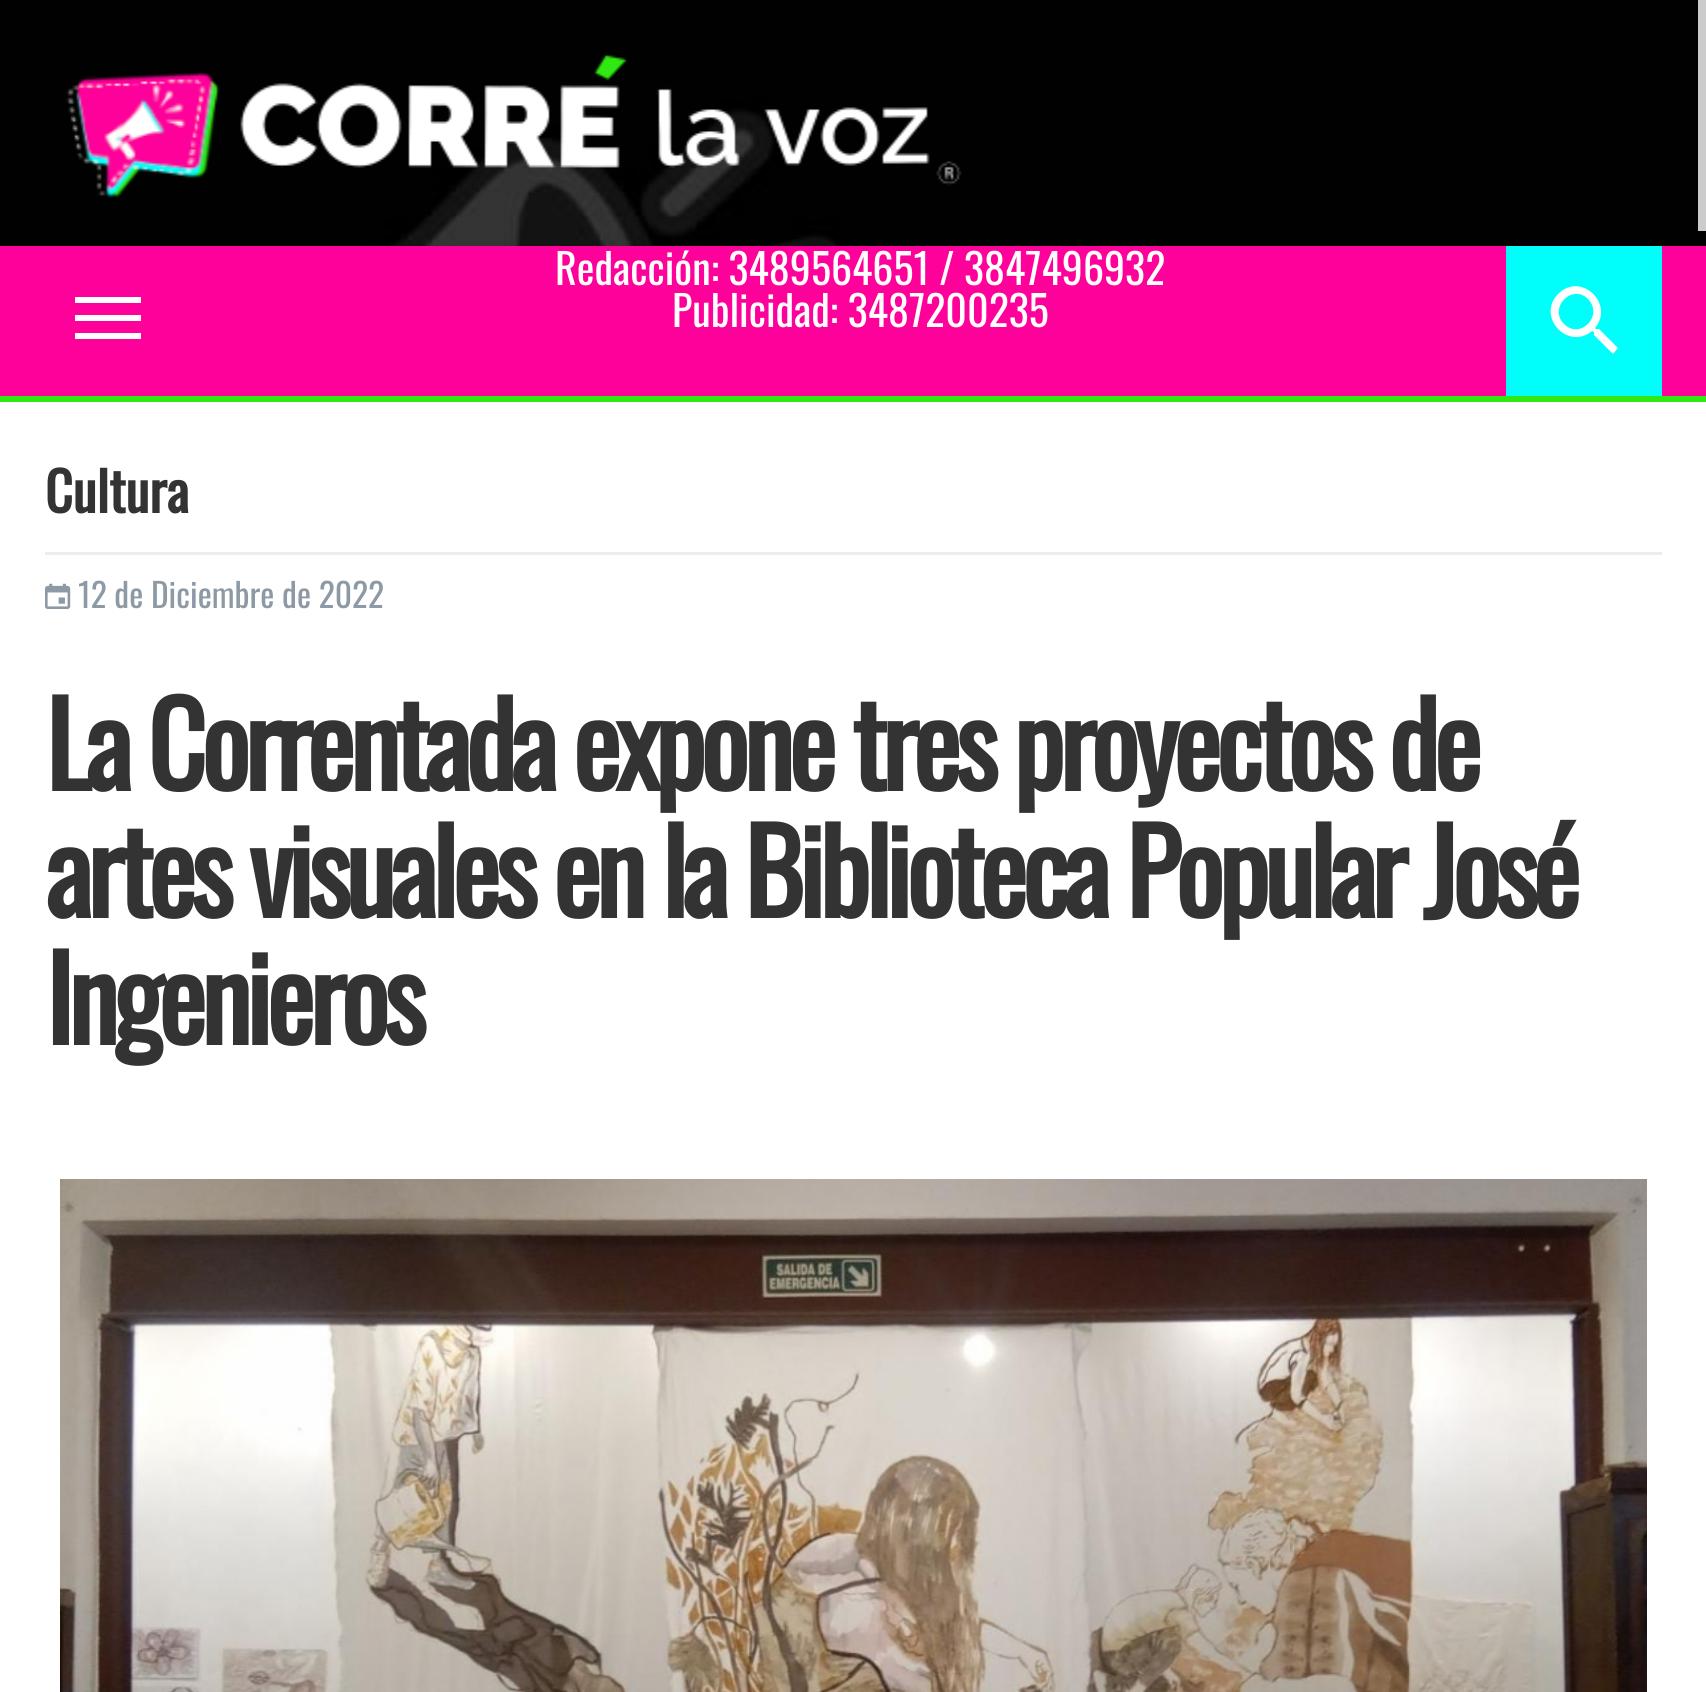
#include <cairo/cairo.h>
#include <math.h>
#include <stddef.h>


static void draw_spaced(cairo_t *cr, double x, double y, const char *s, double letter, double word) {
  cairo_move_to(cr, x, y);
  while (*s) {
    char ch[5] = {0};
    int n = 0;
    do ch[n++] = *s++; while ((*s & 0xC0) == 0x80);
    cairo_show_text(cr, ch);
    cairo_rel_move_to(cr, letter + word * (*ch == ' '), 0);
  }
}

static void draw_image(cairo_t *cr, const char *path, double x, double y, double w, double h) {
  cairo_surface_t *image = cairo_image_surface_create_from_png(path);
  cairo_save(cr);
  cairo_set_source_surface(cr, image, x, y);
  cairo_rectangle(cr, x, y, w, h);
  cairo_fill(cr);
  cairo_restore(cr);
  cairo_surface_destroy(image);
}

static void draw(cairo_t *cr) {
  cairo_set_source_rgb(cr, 1, 1, 1);
  cairo_paint(cr);
  draw_image(cr, "images/1.png", 0, 0, 1706, 246);
  cairo_set_source_rgb(cr, 204 / 255.0, 204 / 255.0, 204 / 255.0);
  cairo_rectangle(cr, 1698, 0, 8, 231);
  cairo_fill(cr);
  draw_image(cr, "images/2.png", 66, 55, 896, 143);
  cairo_set_source_rgb(cr, 254 / 255.0, 0, 154 / 255.0);
  cairo_rectangle(cr, 0, 246, 1706, 150);
  cairo_fill(cr);
  cairo_set_source_rgb(cr, 48 / 255.0, 232 / 255.0, 18 / 255.0);
  cairo_rectangle(cr, 0, 396, 1706, 6);
  cairo_fill(cr);
  cairo_set_source_rgb(cr, 1, 1, 1);
  cairo_rectangle(cr, 75, 297, 66, 6);
  cairo_fill(cr);
  cairo_rectangle(cr, 75, 315, 66, 6);
  cairo_fill(cr);
  cairo_rectangle(cr, 75, 333, 66, 6);
  cairo_fill(cr);
  cairo_set_source_rgb(cr, 0, 1, 250 / 255.0);
  cairo_rectangle(cr, 1506, 246, 156, 150);
  cairo_fill(cr);
  cairo_set_source_rgb(cr, 1, 1, 1);
  cairo_new_path(cr);
  cairo_move_to(cr, 1599, 329);
  cairo_line_to(cr, 1618, 348);
  cairo_line_to(cr, 1613, 354);
  cairo_line_to(cr, 1594, 335);
  cairo_line_to(cr, 1594, 332);
  cairo_line_to(cr, 1592, 331);
  cairo_curve_to(cr, 1568, 351, 1536, 317, 1558, 294);
  cairo_curve_to(cr, 1581, 271, 1615, 304, 1595, 328);
  cairo_line_to(cr, 1596, 329);
  cairo_close_path(cr);
  cairo_move_to(cr, 1564, 324);
  cairo_curve_to(cr, 1580, 340, 1604, 316, 1588, 299);
  cairo_curve_to(cr, 1572, 283, 1548, 308, 1564, 324);
  cairo_close_path(cr);
  cairo_fill(cr);
  cairo_set_source_rgb(cr, 237 / 255.0, 237 / 255.0, 237 / 255.0);
  cairo_rectangle(cr, 45, 552, 1617, 3);
  cairo_fill(cr);
  draw_image(cr, "images/3.png", 45, 583, 26, 26);
  draw_image(cr, "images/4.png", 60, 1179, 1587, 513);
  cairo_select_font_face(cr, "Oswald", CAIRO_FONT_SLANT_NORMAL, CAIRO_FONT_WEIGHT_NORMAL);
  cairo_set_font_size(cr, 42);
  cairo_set_source_rgb(cr, 1, 1, 1);
  cairo_move_to(cr, 555, 285);
  cairo_show_text(cr, "Redacción: 3489564651 / 3847496932");
  cairo_move_to(cr, 672, 327);
  cairo_show_text(cr, "Publicidad: 3487200235");
  cairo_select_font_face(cr, "Oswald", CAIRO_FONT_SLANT_NORMAL, CAIRO_FONT_WEIGHT_BOLD);
  cairo_set_font_size(cr, 54);
  cairo_set_source_rgb(cr, 51 / 255.0, 51 / 255.0, 51 / 255.0);
  cairo_move_to(cr, 45, 513);
  cairo_show_text(cr, "Cultura");
  cairo_select_font_face(cr, "Oswald", CAIRO_FONT_SLANT_NORMAL, CAIRO_FONT_WEIGHT_NORMAL);
  cairo_set_font_size(cr, 33.5);
  cairo_set_source_rgb(cr, 141 / 255.0, 154 / 255.0, 165 / 255.0);
  cairo_move_to(cr, 78, 608);
  cairo_show_text(cr, "12 de Diciembre de 2022");
  cairo_select_font_face(cr, "Oswald", CAIRO_FONT_SLANT_NORMAL, CAIRO_FONT_WEIGHT_BOLD);
  cairo_set_font_size(cr, 115.25);
  cairo_set_source_rgb(cr, 51 / 255.0, 51 / 255.0, 51 / 255.0);
  draw_spaced(cr, 45, 791, "La Correntada expone tres proyectos de", -5.75, 0);
  draw_spaced(cr, 45, 918, "artes visuales en la Biblioteca Popular José", -5.75, 0);
  draw_spaced(cr, 45, 1045, "Ingenieros", -5.75, 0);
}

int main(void) {
  cairo_surface_t *surface = cairo_image_surface_create(CAIRO_FORMAT_RGB24, 1706, 1692);
  cairo_t *cr = cairo_create(surface);
  cairo_font_options_t *options = cairo_font_options_create();
  cairo_font_options_set_hint_metrics(options, CAIRO_HINT_METRICS_OFF);
  cairo_font_options_set_hint_style(options, CAIRO_HINT_STYLE_NONE);
  cairo_set_font_options(cr, options);
  cairo_set_miter_limit(cr, 4);
  draw(cr);
  cairo_surface_write_to_png(surface, "out.png");
  cairo_font_options_destroy(options);
  cairo_destroy(cr);
  cairo_surface_destroy(surface);
  return 0;
}
